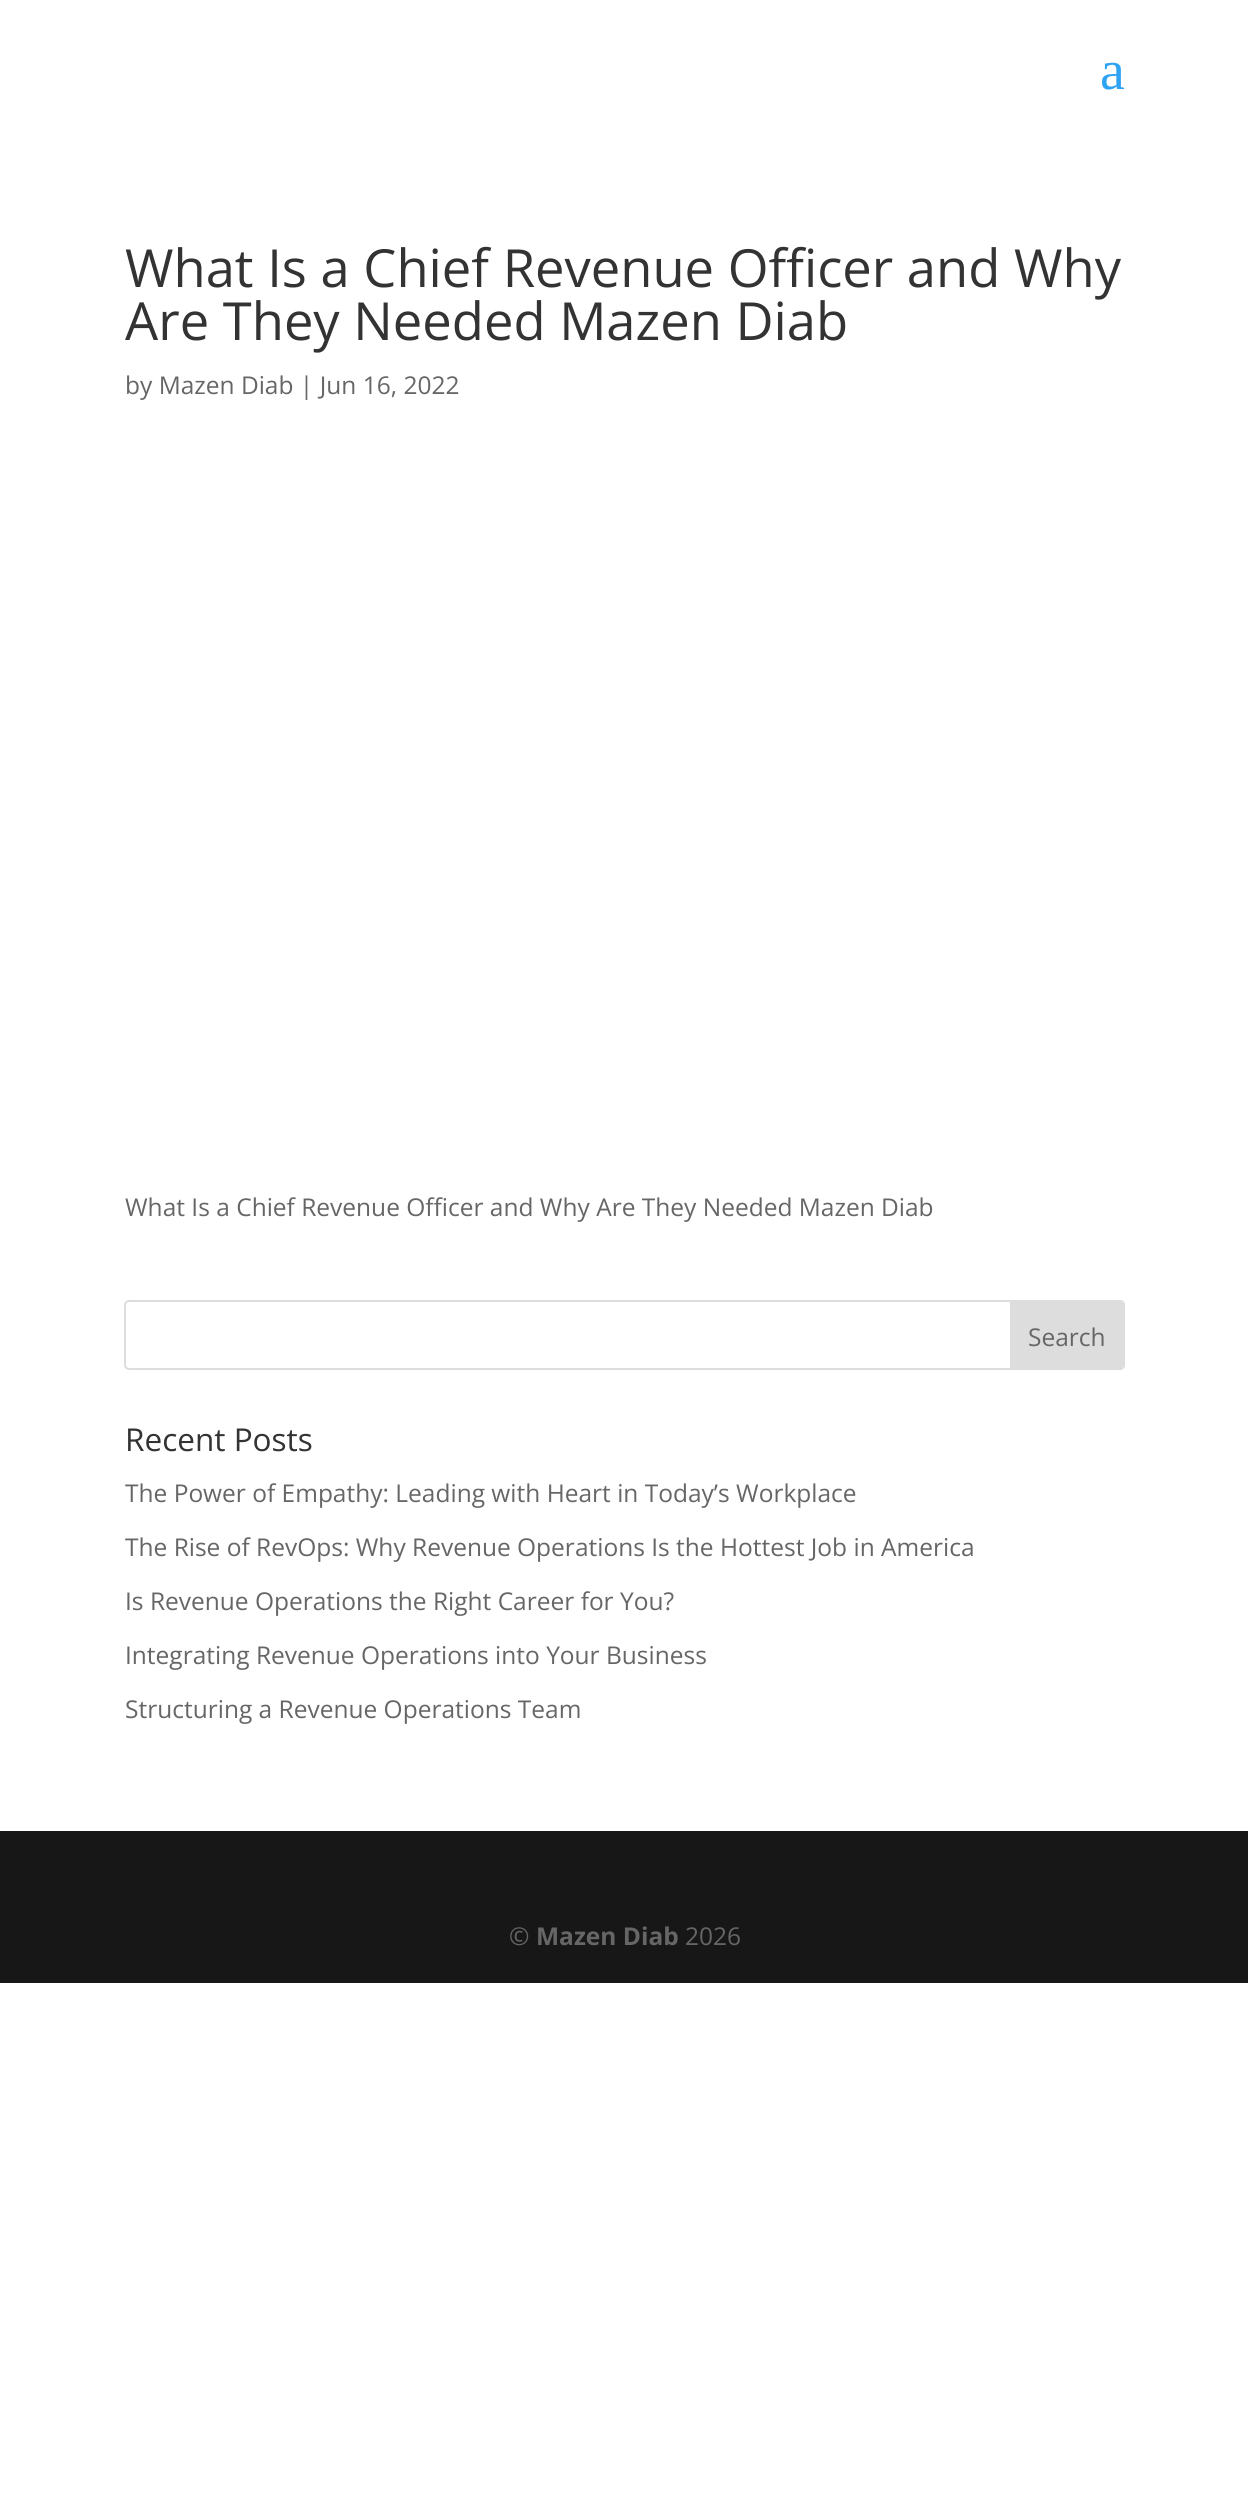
#include <cairo/cairo.h>
#include <math.h>
#include <stddef.h>


static void rounded_rect(cairo_t *cr, double x, double y, double w, double h, double r) {
  cairo_new_sub_path(cr);
  cairo_arc(cr, x + w - r, y + h - r, r, 0, M_PI / 2);
  cairo_arc(cr, x + r, y + h - r, r, M_PI / 2, M_PI);
  cairo_arc(cr, x + r, y + r, r, M_PI, 1.5 * M_PI);
  cairo_arc(cr, x + w - r, y + r, r, 1.5 * M_PI, 2 * M_PI);
  cairo_close_path(cr);
}

static void draw(cairo_t *cr) {
  cairo_set_source_rgb(cr, 1, 1, 1);
  cairo_paint(cr);
  rounded_rect(cr, 125, 1301, 999, 68, 4);
  cairo_set_source_rgb(cr, 221 / 255.0, 221 / 255.0, 221 / 255.0);
  cairo_stroke(cr);
  cairo_new_path(cr);
  cairo_move_to(cr, 1011, 1301);
  cairo_line_to(cr, 1120, 1301);
  cairo_curve_to(cr, 1122, 1301, 1124, 1303, 1124, 1305);
  cairo_line_to(cr, 1124, 1365);
  cairo_curve_to(cr, 1124, 1367, 1122, 1369, 1120, 1369);
  cairo_line_to(cr, 1011, 1369);
  cairo_close_path(cr);
  cairo_fill_preserve(cr);
  cairo_stroke(cr);
  cairo_set_source_rgb(cr, 23 / 255.0, 23 / 255.0, 23 / 255.0);
  cairo_rectangle(cr, 0, 1831, 1248, 152);
  cairo_fill(cr);
  cairo_select_font_face(cr, "Liberation Serif", CAIRO_FONT_SLANT_NORMAL, CAIRO_FONT_WEIGHT_NORMAL);
  cairo_set_font_size(cr, 56);
  cairo_set_source_rgb(cr, 46 / 255.0, 163 / 255.0, 242 / 255.0);
  cairo_move_to(cr, 1100, 89);
  cairo_show_text(cr, "a");
  cairo_select_font_face(cr, "Open Sans", CAIRO_FONT_SLANT_NORMAL, CAIRO_FONT_WEIGHT_NORMAL);
  cairo_set_font_size(cr, 52.5);
  cairo_set_source_rgb(cr, 51 / 255.0, 51 / 255.0, 51 / 255.0);
  cairo_move_to(cr, 125, 287);
  cairo_show_text(cr, "What Is a Chief Revenue Officer and Why");
  cairo_move_to(cr, 125, 340);
  cairo_show_text(cr, "Are They Needed Mazen Diab");
  cairo_set_font_size(cr, 24.5);
  cairo_set_source_rgb(cr, 102 / 255.0, 102 / 255.0, 102 / 255.0);
  cairo_move_to(cr, 125, 394);
  cairo_show_text(cr, "by Mazen Diab | Jun 16, 2022");
  cairo_move_to(cr, 125, 1216);
  cairo_show_text(cr, "What Is a Chief Revenue Officer and Why Are They Needed Mazen Diab");
  cairo_move_to(cr, 1028, 1346);
  cairo_show_text(cr, "Search");
  cairo_set_font_size(cr, 31.5);
  cairo_set_source_rgb(cr, 51 / 255.0, 51 / 255.0, 51 / 255.0);
  cairo_move_to(cr, 125, 1451);
  cairo_show_text(cr, "Recent Posts");
  cairo_set_font_size(cr, 24.5);
  cairo_set_source_rgb(cr, 102 / 255.0, 102 / 255.0, 102 / 255.0);
  cairo_move_to(cr, 125, 1502);
  cairo_show_text(cr, "The Power of Empathy: Leading with Heart in Today’s Workplace");
  cairo_move_to(cr, 125, 1556);
  cairo_show_text(cr, "The Rise of RevOps: Why Revenue Operations Is the Hottest Job in America");
  cairo_move_to(cr, 125, 1610);
  cairo_show_text(cr, "Is Revenue Operations the Right Career for You?");
  cairo_move_to(cr, 125, 1664);
  cairo_show_text(cr, "Integrating Revenue Operations into Your Business");
  cairo_move_to(cr, 125, 1718);
  cairo_show_text(cr, "Structuring a Revenue Operations Team");
  cairo_move_to(cr, 509, 1945);
  cairo_show_text(cr, "©");
  cairo_select_font_face(cr, "Open Sans", CAIRO_FONT_SLANT_NORMAL, CAIRO_FONT_WEIGHT_BOLD);
  cairo_move_to(cr, 536, 1945);
  cairo_show_text(cr, "Mazen Diab");
  cairo_select_font_face(cr, "Open Sans", CAIRO_FONT_SLANT_NORMAL, CAIRO_FONT_WEIGHT_NORMAL);
  cairo_move_to(cr, 685, 1945);
  cairo_show_text(cr, "2026");
}

int main(void) {
  cairo_surface_t *surface = cairo_image_surface_create(CAIRO_FORMAT_RGB24, 1248, 2517);
  cairo_t *cr = cairo_create(surface);
  cairo_font_options_t *options = cairo_font_options_create();
  cairo_font_options_set_hint_metrics(options, CAIRO_HINT_METRICS_OFF);
  cairo_font_options_set_hint_style(options, CAIRO_HINT_STYLE_NONE);
  cairo_set_font_options(cr, options);
  cairo_set_miter_limit(cr, 4);
  draw(cr);
  cairo_surface_write_to_png(surface, "out.png");
  cairo_font_options_destroy(options);
  cairo_destroy(cr);
  cairo_surface_destroy(surface);
  return 0;
}
